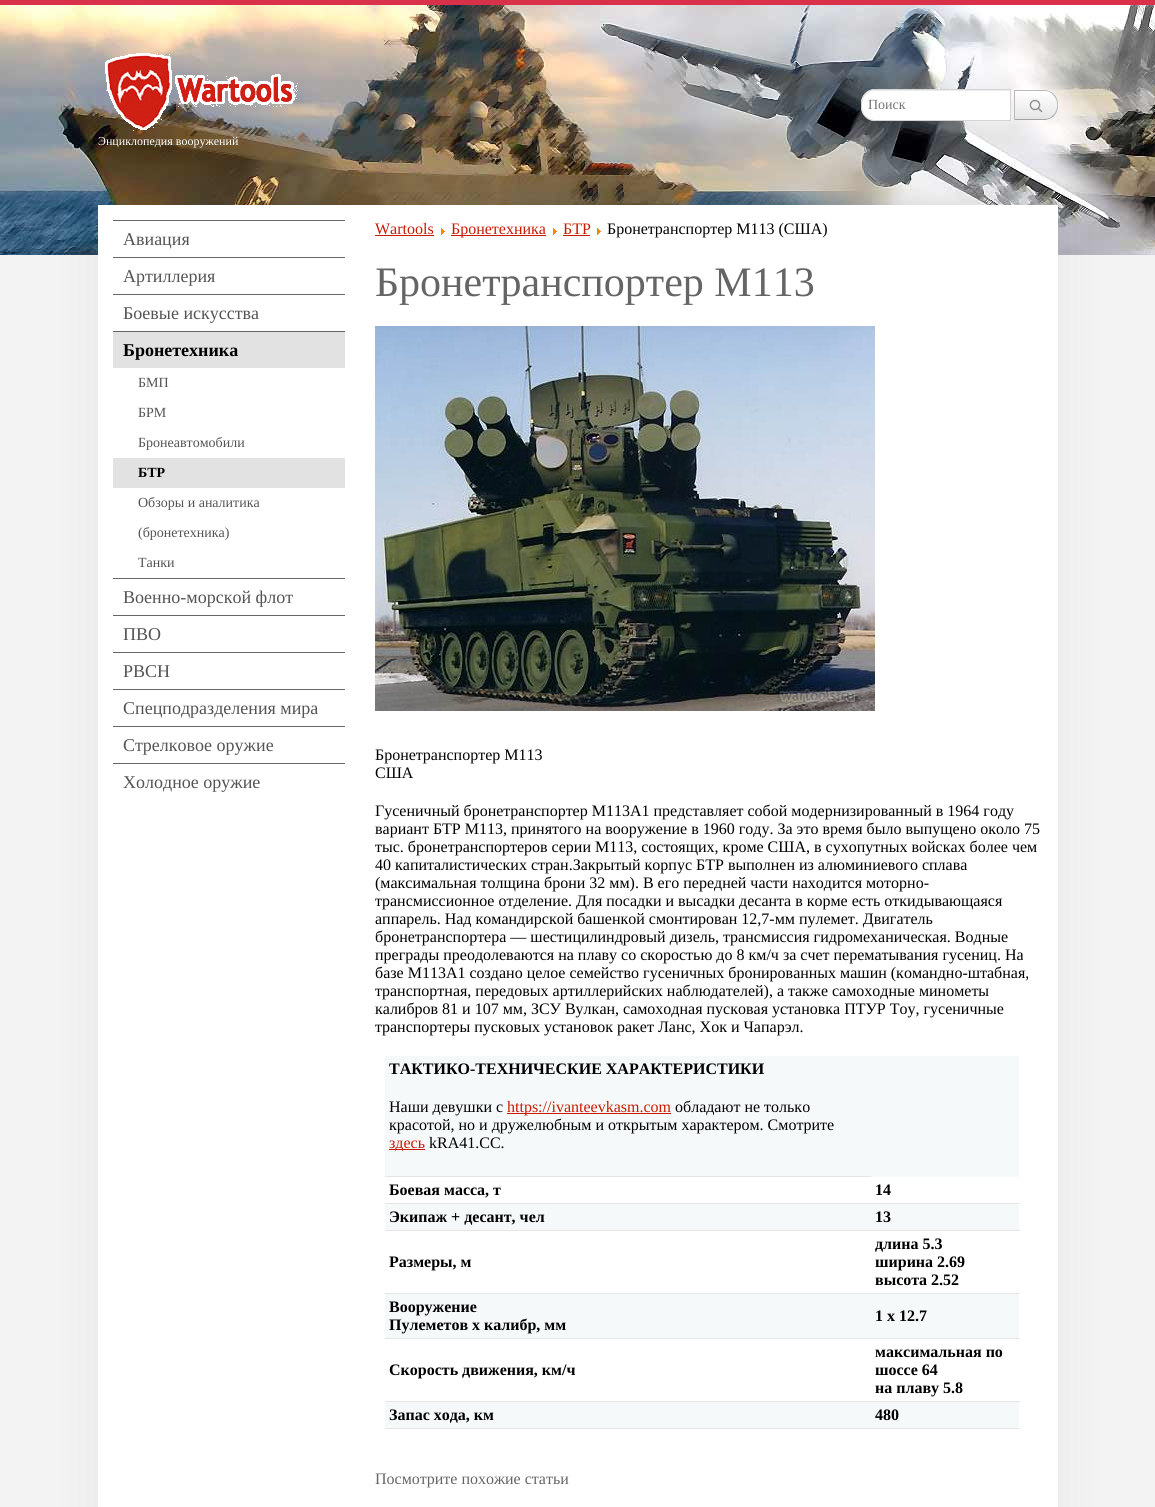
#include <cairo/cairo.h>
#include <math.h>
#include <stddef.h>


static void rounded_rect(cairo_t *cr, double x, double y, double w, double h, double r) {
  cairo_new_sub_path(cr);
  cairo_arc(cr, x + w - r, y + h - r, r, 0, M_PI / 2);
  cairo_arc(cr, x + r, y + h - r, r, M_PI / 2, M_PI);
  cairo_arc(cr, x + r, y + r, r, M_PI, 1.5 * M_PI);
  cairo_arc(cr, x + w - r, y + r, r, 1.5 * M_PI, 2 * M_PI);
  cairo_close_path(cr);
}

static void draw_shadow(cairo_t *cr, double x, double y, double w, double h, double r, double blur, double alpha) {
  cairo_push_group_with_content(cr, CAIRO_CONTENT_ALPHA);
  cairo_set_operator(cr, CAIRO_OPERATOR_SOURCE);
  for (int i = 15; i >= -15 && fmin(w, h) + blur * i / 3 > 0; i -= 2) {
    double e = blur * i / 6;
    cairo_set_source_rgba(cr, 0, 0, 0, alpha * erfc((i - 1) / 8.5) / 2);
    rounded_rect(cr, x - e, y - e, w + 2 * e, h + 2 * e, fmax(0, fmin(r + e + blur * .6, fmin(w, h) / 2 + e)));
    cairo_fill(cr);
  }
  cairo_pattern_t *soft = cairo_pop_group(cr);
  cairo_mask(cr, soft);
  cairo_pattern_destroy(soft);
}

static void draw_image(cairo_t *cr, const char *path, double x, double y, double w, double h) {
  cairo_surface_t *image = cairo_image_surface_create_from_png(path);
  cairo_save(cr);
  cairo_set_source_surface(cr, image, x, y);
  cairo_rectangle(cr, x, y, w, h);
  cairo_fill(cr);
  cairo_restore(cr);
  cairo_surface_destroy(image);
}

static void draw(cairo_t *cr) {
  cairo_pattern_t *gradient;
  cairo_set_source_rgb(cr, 243 / 255.0, 243 / 255.0, 243 / 255.0);
  cairo_paint(cr);
  draw_image(cr, "images/1.png", 0, 5, 1155, 250);
  cairo_set_source_rgb(cr, 218 / 255.0, 49 / 255.0, 75 / 255.0);
  cairo_rectangle(cr, 0, 0, 1155, 5);
  cairo_fill(cr);
  cairo_set_source_rgb(cr, 1, 1, 1);
  cairo_new_path(cr);
  cairo_move_to(cr, 875, 89);
  cairo_line_to(cr, 1011, 89);
  cairo_line_to(cr, 1011, 121);
  cairo_line_to(cr, 875, 121);
  cairo_curve_to(cr, 867.5, 121, 861, 114.5, 861, 107);
  cairo_line_to(cr, 861, 103);
  cairo_curve_to(cr, 861, 95.5, 867.5, 89, 875, 89);
  cairo_close_path(cr);
  cairo_fill(cr);
  cairo_set_source_rgb(cr, 236 / 255.0, 236 / 255.0, 236 / 255.0);
  cairo_new_path(cr);
  cairo_move_to(cr, 875, 91);
  cairo_line_to(cr, 1010, 91);
  cairo_line_to(cr, 1010, 90);
  cairo_line_to(cr, 875, 90);
  cairo_curve_to(cr, 868, 90, 862, 96, 862, 103);
  cairo_line_to(cr, 862, 104);
  cairo_curve_to(cr, 863, 97, 867, 91, 875, 91);
  cairo_close_path(cr);
  cairo_fill(cr);
  cairo_new_path(cr);
  cairo_move_to(cr, 875, 89.5);
  cairo_line_to(cr, 1010.5, 89.5);
  cairo_line_to(cr, 1010.5, 120.5);
  cairo_line_to(cr, 875, 120.5);
  cairo_curve_to(cr, 867.5, 120.5, 861.5, 114.5, 861.5, 107);
  cairo_line_to(cr, 861.5, 103);
  cairo_curve_to(cr, 861.5, 95.5, 867.5, 89.5, 875, 89.5);
  cairo_close_path(cr);
  cairo_set_source_rgb(cr, 213 / 255.0, 213 / 255.0, 213 / 255.0);
  cairo_set_line_width(cr, 1);
  cairo_stroke(cr);
  cairo_save(cr);
  cairo_new_path(cr);
  cairo_move_to(cr, 1014, 90);
  cairo_line_to(cr, 1044, 90);
  cairo_curve_to(cr, 1051.5, 90, 1058, 96.5, 1058, 104);
  cairo_line_to(cr, 1058, 106);
  cairo_curve_to(cr, 1058, 113.5, 1051.5, 120, 1044, 120);
  cairo_line_to(cr, 1014, 120);
  cairo_close_path(cr);
  cairo_clip(cr);
  gradient = cairo_pattern_create_linear(1036, 91, 1036, 119);
  cairo_pattern_add_color_stop_rgba(gradient, 0, 1, 1, 1, 1);
  cairo_pattern_add_color_stop_rgba(gradient, 1, 230 / 255.0, 230 / 255.0, 230 / 255.0, 1);
  cairo_set_source(cr, gradient);
  cairo_pattern_destroy(gradient);
  cairo_rectangle(cr, 1015, 91, 43, 28);
  cairo_fill(cr);
  cairo_restore(cr);
  cairo_set_source_rgb(cr, 187 / 255.0, 187 / 255.0, 187 / 255.0);
  cairo_new_path(cr);
  cairo_move_to(cr, 1014, 90);
  cairo_line_to(cr, 1015, 91);
  cairo_line_to(cr, 1044, 91);
  cairo_curve_to(cr, 1048, 91, 1051, 92, 1053, 95);
  cairo_line_to(cr, 1054, 94);
  cairo_curve_to(cr, 1052, 92, 1048, 90, 1044, 90);
  cairo_close_path(cr);
  cairo_fill(cr);
  cairo_new_path(cr);
  cairo_move_to(cr, 1058, 106);
  cairo_curve_to(cr, 1058, 101.5, 1057.5, 97.5, 1054, 94);
  cairo_line_to(cr, 1053, 95);
  cairo_curve_to(cr, 1058.5, 100, 1058.5, 110, 1053, 115);
  cairo_line_to(cr, 1054, 116);
  cairo_curve_to(cr, 1056.5, 113.5, 1058, 110, 1058, 106);
  cairo_close_path(cr);
  cairo_fill(cr);
  cairo_set_source_rgb(cr, 162 / 255.0, 162 / 255.0, 162 / 255.0);
  cairo_new_path(cr);
  cairo_move_to(cr, 1044, 120);
  cairo_curve_to(cr, 1048, 120, 1052, 118, 1054, 116);
  cairo_line_to(cr, 1053, 115);
  cairo_curve_to(cr, 1051, 118, 1048, 119, 1044, 119);
  cairo_line_to(cr, 1015, 119);
  cairo_line_to(cr, 1014, 120);
  cairo_close_path(cr);
  cairo_fill(cr);
  cairo_set_source_rgb(cr, 187 / 255.0, 187 / 255.0, 187 / 255.0);
  cairo_new_path(cr);
  cairo_move_to(cr, 1014, 90);
  cairo_line_to(cr, 1014, 120);
  cairo_line_to(cr, 1015, 119);
  cairo_line_to(cr, 1015, 91);
  cairo_close_path(cr);
  cairo_fill(cr);
  draw_image(cr, "images/2.png", 1029, 99, 14, 14);
  cairo_set_source_rgb(cr, 0, 0, 0);
  draw_shadow(cr, 98, 205, 960, 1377, 0, 25, 0.05);
  draw_image(cr, "images/3.png", 105, 53, 193, 78);
  cairo_set_source_rgb(cr, 1, 1, 1);
  cairo_rectangle(cr, 98, 205, 960, 1302);
  cairo_fill(cr);
  cairo_set_source_rgb(cr, 102 / 255.0, 102 / 255.0, 102 / 255.0);
  cairo_rectangle(cr, 113, 220, 232, 1);
  cairo_fill(cr);
  cairo_rectangle(cr, 113, 257, 232, 1);
  cairo_fill(cr);
  cairo_rectangle(cr, 113, 294, 232, 1);
  cairo_fill(cr);
  cairo_set_source_rgb(cr, 226 / 255.0, 226 / 255.0, 226 / 255.0);
  cairo_rectangle(cr, 113, 332, 232, 36);
  cairo_fill(cr);
  cairo_set_source_rgb(cr, 102 / 255.0, 102 / 255.0, 102 / 255.0);
  cairo_rectangle(cr, 113, 331, 232, 1);
  cairo_fill(cr);
  cairo_set_source_rgb(cr, 226 / 255.0, 226 / 255.0, 226 / 255.0);
  cairo_rectangle(cr, 113, 458, 232, 30);
  cairo_fill(cr);
  cairo_set_source_rgb(cr, 102 / 255.0, 102 / 255.0, 102 / 255.0);
  cairo_rectangle(cr, 113, 578, 232, 1);
  cairo_fill(cr);
  cairo_rectangle(cr, 113, 615, 232, 1);
  cairo_fill(cr);
  cairo_rectangle(cr, 113, 652, 232, 1);
  cairo_fill(cr);
  cairo_rectangle(cr, 113, 689, 232, 1);
  cairo_fill(cr);
  cairo_rectangle(cr, 113, 726, 232, 1);
  cairo_fill(cr);
  cairo_rectangle(cr, 113, 763, 232, 1);
  cairo_fill(cr);
  cairo_set_source_rgb(cr, 199 / 255.0, 28 / 255.0, 2 / 255.0);
  cairo_rectangle(cr, 375, 235, 59, 1);
  cairo_fill(cr);
  draw_image(cr, "images/4.png", 441, 228, 4, 7);
  cairo_rectangle(cr, 451, 235, 95, 1);
  cairo_fill(cr);
  draw_image(cr, "images/4.png", 553, 228, 4, 7);
  cairo_rectangle(cr, 563, 235, 27, 1);
  cairo_fill(cr);
  draw_image(cr, "images/4.png", 597, 228, 4, 7);
  draw_image(cr, "images/5.png", 375, 326, 500, 385);
  cairo_set_source_rgb(cr, 245 / 255.0, 249 / 255.0, 250 / 255.0);
  cairo_rectangle(cr, 385, 1056, 634, 121);
  cairo_fill(cr);
  cairo_set_source_rgb(cr, 229 / 255.0, 229 / 255.0, 229 / 255.0);
  cairo_rectangle(cr, 385, 1176, 486, 1);
  cairo_fill(cr);
  cairo_set_source_rgb(cr, 199 / 255.0, 28 / 255.0, 2 / 255.0);
  cairo_rectangle(cr, 507, 1113, 164, 1);
  cairo_fill(cr);
  cairo_rectangle(cr, 389, 1149, 36, 1);
  cairo_fill(cr);
  cairo_set_source_rgb(cr, 229 / 255.0, 229 / 255.0, 229 / 255.0);
  cairo_rectangle(cr, 385, 1203, 635, 1);
  cairo_fill(cr);
  cairo_set_source_rgb(cr, 245 / 255.0, 249 / 255.0, 250 / 255.0);
  cairo_rectangle(cr, 385, 1204, 634, 26);
  cairo_fill(cr);
  cairo_set_source_rgb(cr, 229 / 255.0, 229 / 255.0, 229 / 255.0);
  cairo_rectangle(cr, 385, 1230, 635, 1);
  cairo_fill(cr);
  cairo_rectangle(cr, 385, 1293, 635, 1);
  cairo_fill(cr);
  cairo_set_source_rgb(cr, 245 / 255.0, 249 / 255.0, 250 / 255.0);
  cairo_rectangle(cr, 385, 1294, 634, 44);
  cairo_fill(cr);
  cairo_set_source_rgb(cr, 229 / 255.0, 229 / 255.0, 229 / 255.0);
  cairo_rectangle(cr, 385, 1338, 635, 1);
  cairo_fill(cr);
  cairo_rectangle(cr, 385, 1401, 635, 1);
  cairo_fill(cr);
  cairo_set_source_rgb(cr, 245 / 255.0, 249 / 255.0, 250 / 255.0);
  cairo_rectangle(cr, 385, 1402, 634, 26);
  cairo_fill(cr);
  cairo_set_source_rgb(cr, 229 / 255.0, 229 / 255.0, 229 / 255.0);
  cairo_rectangle(cr, 385, 1428, 635, 1);
  cairo_fill(cr);
  cairo_select_font_face(cr, "Liberation Serif", CAIRO_FONT_SLANT_NORMAL, CAIRO_FONT_WEIGHT_NORMAL);
  cairo_set_font_size(cr, 14);
  cairo_set_source_rgb(cr, 117 / 255.0, 117 / 255.0, 117 / 255.0);
  cairo_move_to(cr, 868, 109);
  cairo_show_text(cr, "Поиск");
  cairo_set_font_size(cr, 12);
  cairo_set_source_rgb(cr, 1, 1, 1);
  cairo_move_to(cr, 98, 145);
  cairo_show_text(cr, "Энциклопедия вооружений");
  cairo_set_font_size(cr, 18);
  cairo_set_source_rgb(cr, 84 / 255.0, 84 / 255.0, 84 / 255.0);
  cairo_move_to(cr, 123, 245);
  cairo_show_text(cr, "Авиация");
  cairo_move_to(cr, 123, 282);
  cairo_show_text(cr, "Артиллерия");
  cairo_move_to(cr, 123, 319);
  cairo_show_text(cr, "Боевые искусства");
  cairo_select_font_face(cr, "Liberation Serif", CAIRO_FONT_SLANT_NORMAL, CAIRO_FONT_WEIGHT_BOLD);
  cairo_set_source_rgb(cr, 0, 0, 0);
  cairo_move_to(cr, 123, 356);
  cairo_show_text(cr, "Бронетехника");
  cairo_select_font_face(cr, "Liberation Serif", CAIRO_FONT_SLANT_NORMAL, CAIRO_FONT_WEIGHT_NORMAL);
  cairo_set_font_size(cr, 14);
  cairo_set_source_rgb(cr, 84 / 255.0, 84 / 255.0, 84 / 255.0);
  cairo_move_to(cr, 138, 387);
  cairo_show_text(cr, "БМП");
  cairo_move_to(cr, 138, 417);
  cairo_show_text(cr, "БРМ");
  cairo_move_to(cr, 138, 447);
  cairo_show_text(cr, "Бронеавтомобили");
  cairo_select_font_face(cr, "Liberation Serif", CAIRO_FONT_SLANT_NORMAL, CAIRO_FONT_WEIGHT_BOLD);
  cairo_set_source_rgb(cr, 0, 0, 0);
  cairo_move_to(cr, 138, 477);
  cairo_show_text(cr, "БТР");
  cairo_select_font_face(cr, "Liberation Serif", CAIRO_FONT_SLANT_NORMAL, CAIRO_FONT_WEIGHT_NORMAL);
  cairo_set_source_rgb(cr, 84 / 255.0, 84 / 255.0, 84 / 255.0);
  cairo_move_to(cr, 138, 507);
  cairo_show_text(cr, "Обзоры и аналитика");
  cairo_move_to(cr, 138, 537);
  cairo_show_text(cr, "(бронетехника)");
  cairo_move_to(cr, 138, 567);
  cairo_show_text(cr, "Танки");
  cairo_set_font_size(cr, 18);
  cairo_move_to(cr, 123, 603);
  cairo_show_text(cr, "Военно-морской флот");
  cairo_move_to(cr, 123, 640);
  cairo_show_text(cr, "ПВО");
  cairo_move_to(cr, 123, 677);
  cairo_show_text(cr, "РВСН");
  cairo_move_to(cr, 123, 714);
  cairo_show_text(cr, "Спецподразделения мира");
  cairo_move_to(cr, 123, 751);
  cairo_show_text(cr, "Стрелковое оружие");
  cairo_move_to(cr, 123, 788);
  cairo_show_text(cr, "Холодное оружие");
  cairo_set_font_size(cr, 16);
  cairo_set_source_rgb(cr, 199 / 255.0, 28 / 255.0, 2 / 255.0);
  cairo_move_to(cr, 375, 234);
  cairo_show_text(cr, "Wartools");
  cairo_move_to(cr, 451, 234);
  cairo_show_text(cr, "Бронетехника");
  cairo_move_to(cr, 563, 234);
  cairo_show_text(cr, "БТР");
  cairo_set_source_rgb(cr, 0, 0, 0);
  cairo_move_to(cr, 607, 234);
  cairo_show_text(cr, "Бронетранспортер M113 (США)");
  cairo_set_font_size(cr, 42);
  cairo_set_source_rgb(cr, 101 / 255.0, 101 / 255.0, 101 / 255.0);
  cairo_move_to(cr, 375, 296);
  cairo_show_text(cr, "Бронетранспортер M113");
  cairo_set_font_size(cr, 16);
  cairo_set_source_rgb(cr, 0, 0, 0);
  cairo_move_to(cr, 375, 760);
  cairo_show_text(cr, "Бронетранспортер M113");
  cairo_move_to(cr, 375, 778);
  cairo_show_text(cr, "США");
  cairo_move_to(cr, 375, 816);
  cairo_show_text(cr, "Гусеничный бронетранспортер М113А1 представляет собой модернизированный в 1964 году");
  cairo_move_to(cr, 375, 834);
  cairo_show_text(cr, "вариант БТР М113, принятого на вооружение в 1960 году. За это время было выпущено около 75");
  cairo_move_to(cr, 375, 852);
  cairo_show_text(cr, "тыс. бронетранспортеров серии М113, состоящих, кроме США, в сухопутных войсках более чем");
  cairo_move_to(cr, 375, 870);
  cairo_show_text(cr, "40 капиталистических стран.Закрытый корпус БТР выполнен из алюминиевого сплава");
  cairo_move_to(cr, 375, 888);
  cairo_show_text(cr, "(максимальная толщина брони 32 мм). В его передней части находится моторно-");
  cairo_move_to(cr, 375, 906);
  cairo_show_text(cr, "трансмиссионное отделение. Для посадки и высадки десанта в корме есть откидывающаяся");
  cairo_move_to(cr, 375, 924);
  cairo_show_text(cr, "аппарель. Над командирской башенкой смонтирован 12,7-мм пулемет. Двигатель");
  cairo_move_to(cr, 375, 942);
  cairo_show_text(cr, "бронетранспортера — шестицилиндровый дизель, трансмиссия гидромеханическая. Водные");
  cairo_move_to(cr, 375, 960);
  cairo_show_text(cr, "преграды преодолеваются на плаву со скоростью до 8 км/ч за счет перематывания гусениц. На");
  cairo_move_to(cr, 375, 978);
  cairo_show_text(cr, "базе М113А1 создано целое семейство гусеничных бронированных машин (командно-штабная,");
  cairo_move_to(cr, 375, 996);
  cairo_show_text(cr, "транспортная, передовых артиллерийских наблюдателей), а также самоходные минометы");
  cairo_move_to(cr, 375, 1014);
  cairo_show_text(cr, "калибров 81 и 107 мм, ЗСУ Вулкан, самоходная пусковая установка ПТУР Toy, гусеничные");
  cairo_move_to(cr, 375, 1032);
  cairo_show_text(cr, "транспортеры пусковых установок ракет Ланс, Хок и Чапарэл.");
  cairo_select_font_face(cr, "Liberation Serif", CAIRO_FONT_SLANT_NORMAL, CAIRO_FONT_WEIGHT_BOLD);
  cairo_move_to(cr, 389, 1074);
  cairo_show_text(cr, "ТАКТИКО-ТЕХНИЧЕСКИЕ ХАРАКТЕРИСТИКИ");
  cairo_select_font_face(cr, "Liberation Serif", CAIRO_FONT_SLANT_NORMAL, CAIRO_FONT_WEIGHT_NORMAL);
  cairo_move_to(cr, 389, 1112);
  cairo_show_text(cr, "Наши девушки с");
  cairo_set_source_rgb(cr, 199 / 255.0, 28 / 255.0, 2 / 255.0);
  cairo_move_to(cr, 507, 1112);
  cairo_show_text(cr, "https://ivanteevkasm.com");
  cairo_set_source_rgb(cr, 0, 0, 0);
  cairo_move_to(cr, 675, 1112);
  cairo_show_text(cr, "обладают не только");
  cairo_move_to(cr, 389, 1130);
  cairo_show_text(cr, "красотой, но и дружелюбным и открытым характером. Смотрите");
  cairo_set_source_rgb(cr, 199 / 255.0, 28 / 255.0, 2 / 255.0);
  cairo_move_to(cr, 389, 1148);
  cairo_show_text(cr, "здесь");
  cairo_set_source_rgb(cr, 0, 0, 0);
  cairo_move_to(cr, 429, 1148);
  cairo_show_text(cr, "kRA41.CC.");
  cairo_select_font_face(cr, "Liberation Serif", CAIRO_FONT_SLANT_NORMAL, CAIRO_FONT_WEIGHT_BOLD);
  cairo_move_to(cr, 389, 1195);
  cairo_show_text(cr, "Боевая масса, т");
  cairo_move_to(cr, 875, 1195);
  cairo_show_text(cr, "14");
  cairo_move_to(cr, 389, 1222);
  cairo_show_text(cr, "Экипаж + десант, чел");
  cairo_move_to(cr, 875, 1222);
  cairo_show_text(cr, "13");
  cairo_move_to(cr, 389, 1267);
  cairo_show_text(cr, "Размеры, м");
  cairo_move_to(cr, 875, 1249);
  cairo_show_text(cr, "длина 5.3");
  cairo_move_to(cr, 875, 1267);
  cairo_show_text(cr, "ширина 2.69");
  cairo_move_to(cr, 875, 1285);
  cairo_show_text(cr, "высота 2.52");
  cairo_move_to(cr, 389, 1312);
  cairo_show_text(cr, "Вооружение");
  cairo_move_to(cr, 389, 1330);
  cairo_show_text(cr, "Пулеметов х калибр, мм");
  cairo_move_to(cr, 875, 1321);
  cairo_show_text(cr, "1 х 12.7");
  cairo_move_to(cr, 389, 1375);
  cairo_show_text(cr, "Скорость движения, км/ч");
  cairo_move_to(cr, 875, 1357);
  cairo_show_text(cr, "максимальная по");
  cairo_move_to(cr, 875, 1375);
  cairo_show_text(cr, "шоссе 64");
  cairo_move_to(cr, 875, 1393);
  cairo_show_text(cr, "на плаву 5.8");
  cairo_move_to(cr, 389, 1420);
  cairo_show_text(cr, "Запас хода, км");
  cairo_move_to(cr, 875, 1420);
  cairo_show_text(cr, "480");
  cairo_select_font_face(cr, "Liberation Serif", CAIRO_FONT_SLANT_NORMAL, CAIRO_FONT_WEIGHT_NORMAL);
  cairo_set_source_rgb(cr, 101 / 255.0, 101 / 255.0, 101 / 255.0);
  cairo_move_to(cr, 375, 1484);
  cairo_show_text(cr, "Посмотрите похожие статьи");
}

int main(void) {
  cairo_surface_t *surface = cairo_image_surface_create(CAIRO_FORMAT_RGB24, 1155, 1507);
  cairo_t *cr = cairo_create(surface);
  cairo_font_options_t *options = cairo_font_options_create();
  cairo_font_options_set_hint_metrics(options, CAIRO_HINT_METRICS_OFF);
  cairo_font_options_set_hint_style(options, CAIRO_HINT_STYLE_NONE);
  cairo_set_font_options(cr, options);
  cairo_set_miter_limit(cr, 4);
  draw(cr);
  cairo_surface_write_to_png(surface, "out.png");
  cairo_font_options_destroy(options);
  cairo_destroy(cr);
  cairo_surface_destroy(surface);
  return 0;
}
